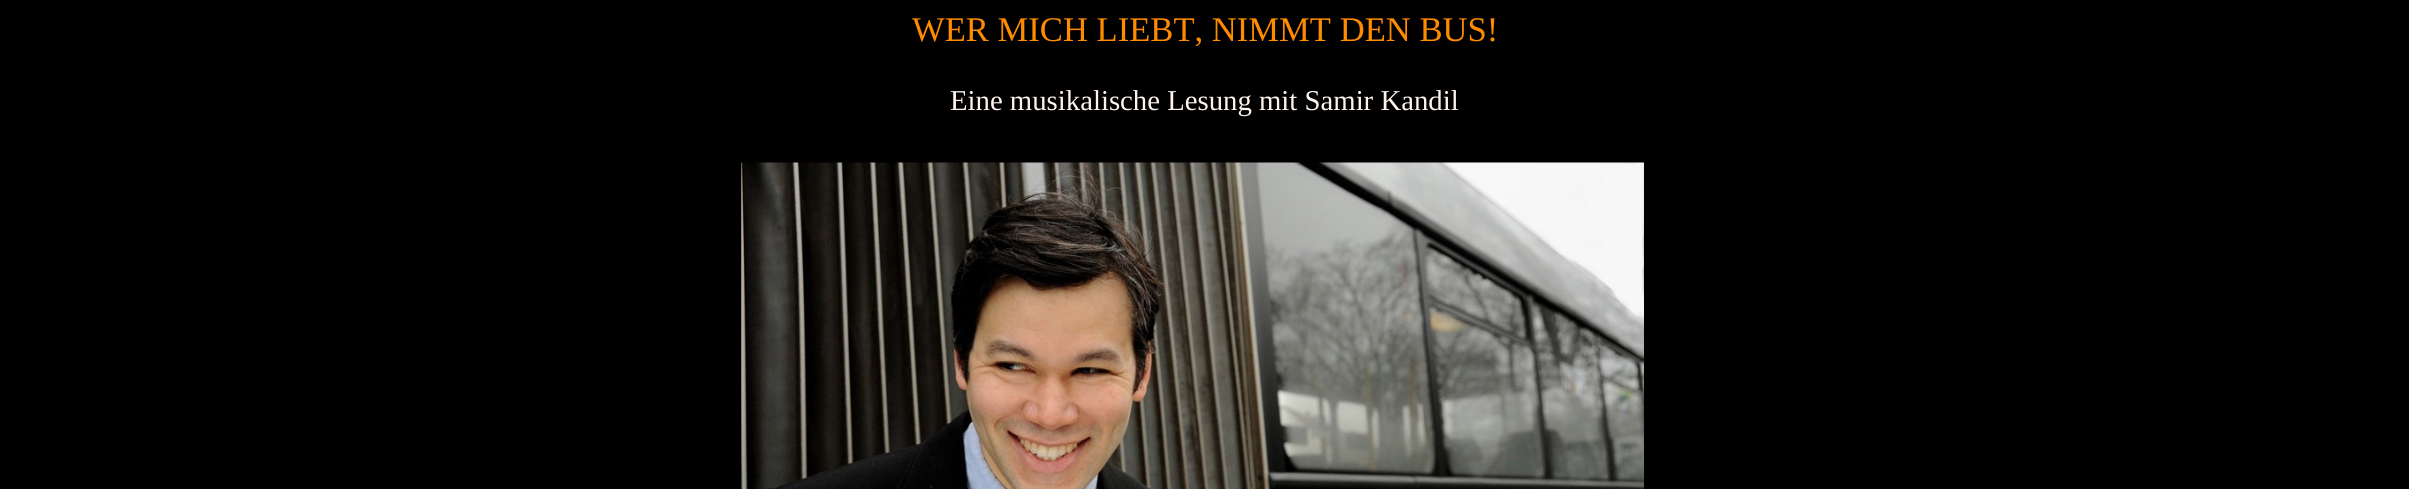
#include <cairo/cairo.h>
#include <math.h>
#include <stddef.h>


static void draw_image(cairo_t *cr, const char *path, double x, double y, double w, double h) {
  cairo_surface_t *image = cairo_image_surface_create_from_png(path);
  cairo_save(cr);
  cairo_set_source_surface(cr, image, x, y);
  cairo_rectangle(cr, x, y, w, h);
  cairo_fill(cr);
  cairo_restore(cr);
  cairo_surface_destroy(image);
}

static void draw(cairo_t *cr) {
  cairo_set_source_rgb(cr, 0, 0, 0);
  cairo_paint(cr);
  draw_image(cr, "images/1.png", 741, 162, 904, 327);
  cairo_select_font_face(cr, "Liberation Serif", CAIRO_FONT_SLANT_NORMAL, CAIRO_FONT_WEIGHT_NORMAL);
  cairo_set_font_size(cr, 34.6);
  cairo_set_source_rgb(cr, 1, 140 / 255.0, 0);
  cairo_move_to(cr, 912, 41);
  cairo_show_text(cr, "WER MICH LIEBT, NIMMT DEN BUS!");
  cairo_set_font_size(cr, 28.75);
  cairo_set_source_rgb(cr, 1, 245 / 255.0, 238 / 255.0);
  cairo_move_to(cr, 950, 110);
  cairo_show_text(cr, "Eine musikalische Lesung mit Samir Kandil");
}

int main(void) {
  cairo_surface_t *surface = cairo_image_surface_create(CAIRO_FORMAT_RGB24, 2409, 489);
  cairo_t *cr = cairo_create(surface);
  cairo_font_options_t *options = cairo_font_options_create();
  cairo_font_options_set_hint_metrics(options, CAIRO_HINT_METRICS_OFF);
  cairo_font_options_set_hint_style(options, CAIRO_HINT_STYLE_NONE);
  cairo_set_font_options(cr, options);
  cairo_set_miter_limit(cr, 4);
  draw(cr);
  cairo_surface_write_to_png(surface, "out.png");
  cairo_font_options_destroy(options);
  cairo_destroy(cr);
  cairo_surface_destroy(surface);
  return 0;
}
